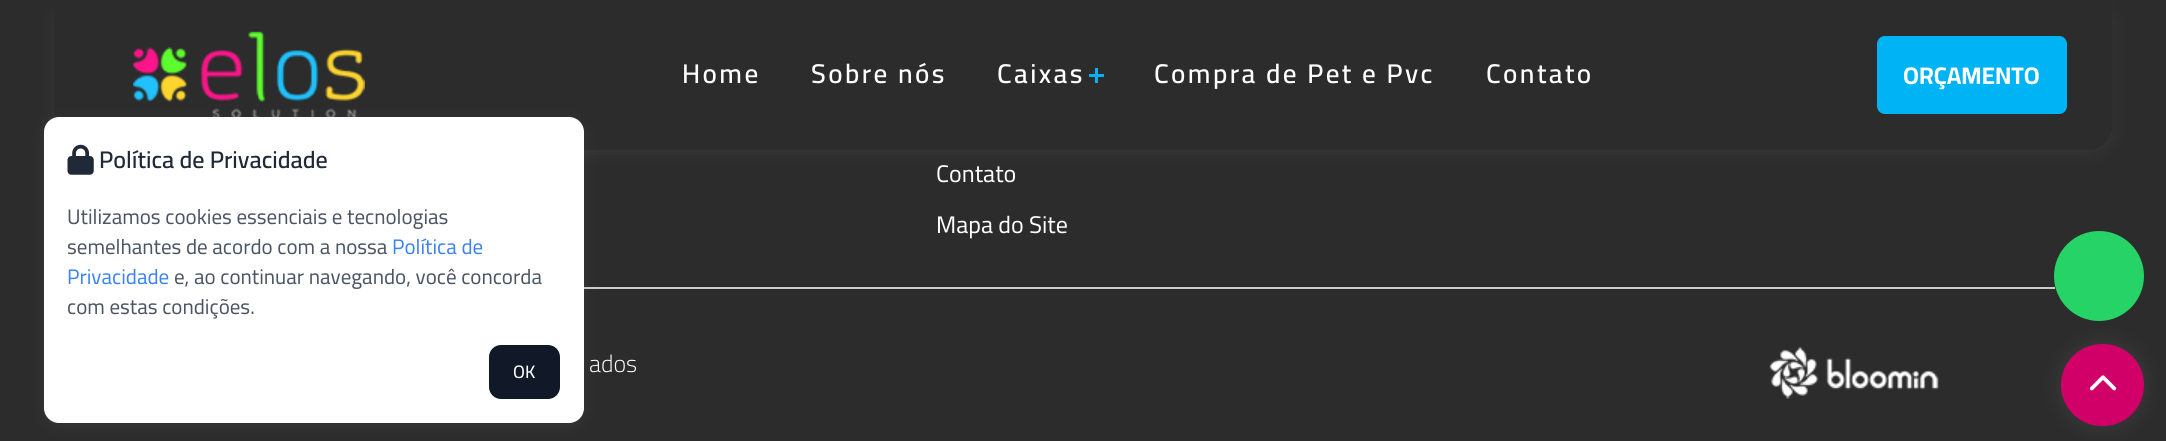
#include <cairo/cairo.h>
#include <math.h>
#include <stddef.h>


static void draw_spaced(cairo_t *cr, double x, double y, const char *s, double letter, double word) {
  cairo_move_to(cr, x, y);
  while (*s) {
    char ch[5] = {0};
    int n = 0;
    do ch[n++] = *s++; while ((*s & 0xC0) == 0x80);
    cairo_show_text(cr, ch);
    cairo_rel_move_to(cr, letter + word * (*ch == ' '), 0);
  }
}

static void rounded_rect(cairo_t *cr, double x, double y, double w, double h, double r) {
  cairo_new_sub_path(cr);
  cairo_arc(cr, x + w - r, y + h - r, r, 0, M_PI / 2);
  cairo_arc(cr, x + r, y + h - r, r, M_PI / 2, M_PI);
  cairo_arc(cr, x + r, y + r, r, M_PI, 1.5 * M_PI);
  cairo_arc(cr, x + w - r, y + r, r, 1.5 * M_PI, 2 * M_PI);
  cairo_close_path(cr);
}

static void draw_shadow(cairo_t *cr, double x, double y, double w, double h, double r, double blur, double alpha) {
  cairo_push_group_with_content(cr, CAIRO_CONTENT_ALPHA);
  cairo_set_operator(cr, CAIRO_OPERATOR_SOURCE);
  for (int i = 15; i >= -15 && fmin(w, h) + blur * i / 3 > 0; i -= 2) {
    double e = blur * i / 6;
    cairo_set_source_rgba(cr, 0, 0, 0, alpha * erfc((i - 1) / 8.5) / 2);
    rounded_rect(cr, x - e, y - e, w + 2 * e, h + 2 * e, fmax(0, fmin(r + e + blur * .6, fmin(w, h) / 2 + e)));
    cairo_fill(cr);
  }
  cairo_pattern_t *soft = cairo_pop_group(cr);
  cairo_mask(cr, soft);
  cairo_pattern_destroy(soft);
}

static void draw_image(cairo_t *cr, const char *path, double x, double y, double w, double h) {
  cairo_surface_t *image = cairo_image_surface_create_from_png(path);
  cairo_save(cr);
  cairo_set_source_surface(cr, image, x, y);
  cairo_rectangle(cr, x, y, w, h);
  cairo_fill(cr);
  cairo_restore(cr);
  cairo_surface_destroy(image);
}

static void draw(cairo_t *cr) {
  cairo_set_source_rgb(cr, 44 / 255.0, 44 / 255.0, 44 / 255.0);
  cairo_paint(cr);
  cairo_set_source_rgb(cr, 99 / 255.0, 99 / 255.0, 99 / 255.0);
  draw_shadow(cr, 54, 3, 2058, 150, 23, 7.5, 0.2);
  cairo_set_source_rgb(cr, 44 / 255.0, 44 / 255.0, 44 / 255.0);
  cairo_new_path(cr);
  cairo_move_to(cr, 54, 0);
  cairo_line_to(cr, 2112, 0);
  cairo_line_to(cr, 2112, 127);
  cairo_curve_to(cr, 2112, 139.5, 2101.5, 150, 2089, 150);
  cairo_line_to(cr, 77, 150);
  cairo_curve_to(cr, 64.5, 150, 54, 139.5, 54, 127);
  cairo_close_path(cr);
  cairo_fill(cr);
  draw_image(cr, "images/1.png", 132, 31, 233, 86);
  cairo_set_source_rgb(cr, 0, 179 / 255.0, 244 / 255.0);
  cairo_rectangle(cr, 1089, 74, 15, 3);
  cairo_fill(cr);
  cairo_rectangle(cr, 1095, 68, 3, 15);
  cairo_fill(cr);
  rounded_rect(cr, 1877, 36, 190, 78, 8);
  cairo_fill(cr);
  cairo_set_source_rgb(cr, 204 / 255.0, 204 / 255.0, 204 / 255.0);
  cairo_rectangle(cr, 584, 287, 1471, 2);
  cairo_fill(cr);
  cairo_set_source_rgb(cr, 99 / 255.0, 99 / 255.0, 99 / 255.0);
  draw_shadow(cr, 44, 120, 540, 306, 15, 6, 0.2);
  cairo_set_source_rgb(cr, 1, 1, 1);
  rounded_rect(cr, 44, 117, 540, 306, 15);
  cairo_fill(cr);
  draw_image(cr, "images/2.png", 67, 144, 27, 31);
  cairo_set_source_rgb(cr, 17 / 255.0, 24 / 255.0, 39 / 255.0);
  rounded_rect(cr, 489, 345, 71, 54, 12);
  cairo_fill(cr);
  draw_image(cr, "images/3.png", 1769, 347, 170, 52);
  cairo_set_source_rgb(cr, 108 / 255.0, 98 / 255.0, 98 / 255.0);
  draw_shadow(cr, 2057, 339, 91, 92, 45.5, 7.5, 0.2);
  cairo_set_source_rgb(cr, 37 / 255.0, 211 / 255.0, 102 / 255.0);
  cairo_arc(cr, 2099, 276, 45, 0, 2 * M_PI);
  cairo_fill(cr);
  cairo_set_source_rgb(cr, 209 / 255.0, 0, 105 / 255.0);
  rounded_rect(cr, 2061, 344, 83, 82, 41);
  cairo_fill(cr);
  draw_image(cr, "images/4.png", 2089, 375, 28, 16);
  cairo_select_font_face(cr, "Cairo SemiBold", CAIRO_FONT_SLANT_NORMAL, CAIRO_FONT_WEIGHT_NORMAL);
  cairo_set_font_size(cr, 27);
  cairo_set_source_rgb(cr, 1, 1, 1);
  draw_spaced(cr, 682, 83, "Home", 2.4, 0);
  draw_spaced(cr, 811, 83, "Sobre nós", 2.4, 0);
  draw_spaced(cr, 997, 83, "Caixas", 2.4, 0);
  draw_spaced(cr, 1154, 83, "Compra de Pet e Pvc", 2.4, 0);
  draw_spaced(cr, 1486, 83, "Contato", 2.4, 0);
  cairo_select_font_face(cr, "Cairo", CAIRO_FONT_SLANT_NORMAL, CAIRO_FONT_WEIGHT_BOLD);
  cairo_set_font_size(cr, 24);
  cairo_move_to(cr, 1903, 84);
  cairo_show_text(cr, "ORÇAMENTO");
  cairo_select_font_face(cr, "Cairo SemiBold", CAIRO_FONT_SLANT_NORMAL, CAIRO_FONT_WEIGHT_NORMAL);
  cairo_set_source_rgb(cr, 31 / 255.0, 41 / 255.0, 55 / 255.0);
  cairo_move_to(cr, 99, 168);
  cairo_show_text(cr, "Política de Privacidade");
  cairo_select_font_face(cr, "Cairo", CAIRO_FONT_SLANT_NORMAL, CAIRO_FONT_WEIGHT_NORMAL);
  cairo_set_font_size(cr, 21);
  cairo_set_source_rgb(cr, 75 / 255.0, 85 / 255.0, 99 / 255.0);
  cairo_move_to(cr, 67, 224);
  cairo_show_text(cr, "Utilizamos cookies essenciais e tecnologias");
  cairo_move_to(cr, 67, 254);
  cairo_show_text(cr, "semelhantes de acordo com a nossa");
  cairo_set_source_rgb(cr, 59 / 255.0, 130 / 255.0, 246 / 255.0);
  cairo_move_to(cr, 392, 254);
  cairo_show_text(cr, "Política de");
  cairo_move_to(cr, 67, 284);
  cairo_show_text(cr, "Privacidade");
  cairo_set_source_rgb(cr, 75 / 255.0, 85 / 255.0, 99 / 255.0);
  cairo_move_to(cr, 174, 284);
  cairo_show_text(cr, "e, ao continuar navegando, você concorda");
  cairo_move_to(cr, 67, 314);
  cairo_show_text(cr, "com estas condições.");
  cairo_select_font_face(cr, "Cairo Medium", CAIRO_FONT_SLANT_NORMAL, CAIRO_FONT_WEIGHT_NORMAL);
  cairo_set_font_size(cr, 18);
  cairo_set_source_rgb(cr, 1, 1, 1);
  cairo_move_to(cr, 513, 378);
  cairo_show_text(cr, "OK");
  cairo_select_font_face(cr, "Cairo", CAIRO_FONT_SLANT_NORMAL, CAIRO_FONT_WEIGHT_NORMAL);
  cairo_set_font_size(cr, 24);
  cairo_move_to(cr, 936, 182);
  cairo_show_text(cr, "Contato");
  cairo_move_to(cr, 936, 233);
  cairo_show_text(cr, "Mapa do Site");
  cairo_select_font_face(cr, "Cairo Light", CAIRO_FONT_SLANT_NORMAL, CAIRO_FONT_WEIGHT_NORMAL);
  cairo_move_to(cr, 589, 372);
  cairo_show_text(cr, "ados");
}

int main(void) {
  cairo_surface_t *surface = cairo_image_surface_create(CAIRO_FORMAT_RGB24, 2166, 441);
  cairo_t *cr = cairo_create(surface);
  cairo_font_options_t *options = cairo_font_options_create();
  cairo_font_options_set_hint_metrics(options, CAIRO_HINT_METRICS_OFF);
  cairo_font_options_set_hint_style(options, CAIRO_HINT_STYLE_NONE);
  cairo_set_font_options(cr, options);
  cairo_set_miter_limit(cr, 4);
  draw(cr);
  cairo_surface_write_to_png(surface, "out.png");
  cairo_font_options_destroy(options);
  cairo_destroy(cr);
  cairo_surface_destroy(surface);
  return 0;
}
